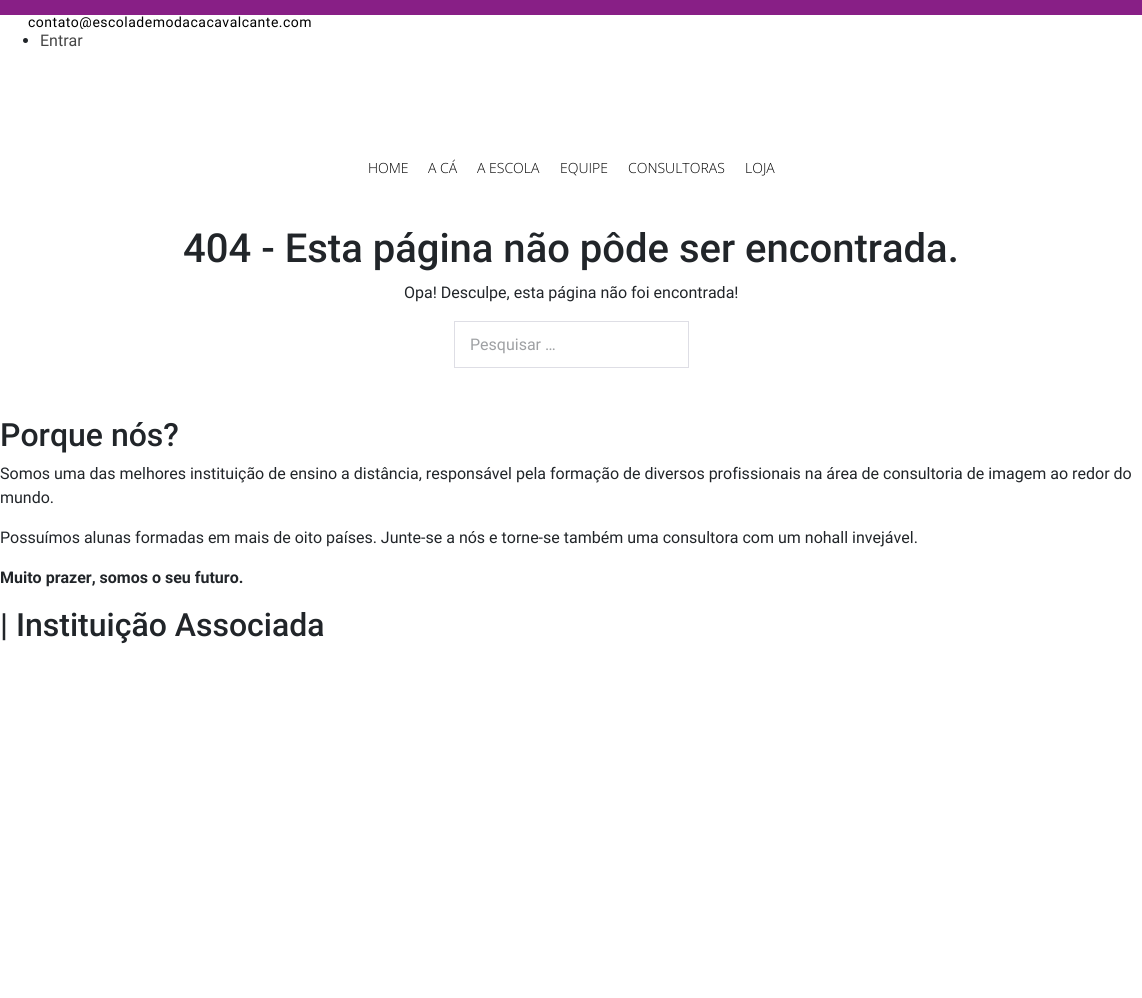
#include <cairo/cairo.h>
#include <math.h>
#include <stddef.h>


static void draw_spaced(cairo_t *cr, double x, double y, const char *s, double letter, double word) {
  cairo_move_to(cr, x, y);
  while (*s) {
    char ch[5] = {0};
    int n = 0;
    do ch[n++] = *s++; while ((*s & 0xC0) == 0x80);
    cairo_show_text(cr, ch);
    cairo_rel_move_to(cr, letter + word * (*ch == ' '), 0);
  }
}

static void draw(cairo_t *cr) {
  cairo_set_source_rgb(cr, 1, 1, 1);
  cairo_paint(cr);
  cairo_set_source_rgb(cr, 136 / 255.0, 31 / 255.0, 134 / 255.0);
  cairo_rectangle(cr, 0, 0, 1142, 15);
  cairo_fill(cr);
  cairo_set_source_rgb(cr, 33 / 255.0, 37 / 255.0, 41 / 255.0);
  cairo_arc(cr, 25.5, 40.5, 2.5, 0, 2 * M_PI);
  cairo_fill(cr);
  cairo_rectangle(cr, 454.5, 321.5, 234, 46);
  cairo_set_source_rgb(cr, 222 / 255.0, 222 / 255.0, 229 / 255.0);
  cairo_set_line_width(cr, 1);
  cairo_stroke(cr);
  cairo_save(cr);
  cairo_rectangle(cr, 0, 15, 1142, 14);
  cairo_clip(cr);
  cairo_select_font_face(cr, "Roboto", CAIRO_FONT_SLANT_NORMAL, CAIRO_FONT_WEIGHT_NORMAL);
  cairo_set_font_size(cr, 14);
  cairo_set_source_rgb(cr, 0, 0, 0);
  draw_spaced(cr, 28, 27, "contato@escolademodacacavalcante.com", 0.5, 0);
  cairo_restore(cr);
  cairo_select_font_face(cr, "Roboto", CAIRO_FONT_SLANT_NORMAL, CAIRO_FONT_WEIGHT_NORMAL);
  cairo_set_font_size(cr, 16);
  cairo_set_source_rgb(cr, 70 / 255.0, 70 / 255.0, 70 / 255.0);
  cairo_move_to(cr, 40, 46);
  cairo_show_text(cr, "Entrar");
  cairo_select_font_face(cr, "Open Sans Light", CAIRO_FONT_SLANT_NORMAL, CAIRO_FONT_WEIGHT_NORMAL);
  cairo_set_font_size(cr, 14);
  cairo_set_source_rgb(cr, 0, 0, 0);
  cairo_move_to(cr, 368, 173);
  cairo_show_text(cr, "HOME");
  cairo_move_to(cr, 428, 173);
  cairo_show_text(cr, "A CÁ");
  cairo_move_to(cr, 477, 173);
  cairo_show_text(cr, "A ESCOLA");
  cairo_move_to(cr, 560, 173);
  cairo_show_text(cr, "EQUIPE");
  cairo_move_to(cr, 628, 173);
  cairo_show_text(cr, "CONSULTORAS");
  cairo_move_to(cr, 745, 173);
  cairo_show_text(cr, "LOJA");
  cairo_select_font_face(cr, "Roboto Medium", CAIRO_FONT_SLANT_NORMAL, CAIRO_FONT_WEIGHT_NORMAL);
  cairo_set_font_size(cr, 40);
  cairo_set_source_rgb(cr, 33 / 255.0, 37 / 255.0, 41 / 255.0);
  cairo_move_to(cr, 183, 262);
  cairo_show_text(cr, "404 - Esta página não pôde ser encontrada.");
  cairo_select_font_face(cr, "Roboto", CAIRO_FONT_SLANT_NORMAL, CAIRO_FONT_WEIGHT_NORMAL);
  cairo_set_font_size(cr, 16);
  cairo_move_to(cr, 404, 298);
  cairo_show_text(cr, "Opa! Desculpe, esta página não foi encontrada!");
  cairo_set_source_rgb(cr, 159 / 255.0, 161 / 255.0, 164 / 255.0);
  cairo_move_to(cr, 470, 350);
  cairo_show_text(cr, "Pesquisar …");
  cairo_select_font_face(cr, "Roboto Medium", CAIRO_FONT_SLANT_NORMAL, CAIRO_FONT_WEIGHT_NORMAL);
  cairo_set_font_size(cr, 32);
  cairo_set_source_rgb(cr, 33 / 255.0, 37 / 255.0, 41 / 255.0);
  cairo_move_to(cr, 0, 446);
  cairo_show_text(cr, "Porque nós?");
  cairo_select_font_face(cr, "Roboto", CAIRO_FONT_SLANT_NORMAL, CAIRO_FONT_WEIGHT_NORMAL);
  cairo_set_font_size(cr, 16);
  cairo_move_to(cr, 0, 479);
  cairo_show_text(cr, "Somos uma das melhores instituição de ensino a distância, responsável pela formação de diversos profissionais na área de consultoria de imagem ao redor do");
  cairo_move_to(cr, 0, 503);
  cairo_show_text(cr, "mundo.");
  cairo_move_to(cr, 0, 543);
  cairo_show_text(cr, "Possuímos alunas formadas em mais de oito países. Junte-se a nós e torne-se também uma consultora com um nohall invejável.");
  cairo_select_font_face(cr, "Roboto", CAIRO_FONT_SLANT_NORMAL, CAIRO_FONT_WEIGHT_BOLD);
  cairo_move_to(cr, 0, 583);
  cairo_show_text(cr, "Muito prazer, somos o seu futuro.");
  cairo_select_font_face(cr, "Roboto Medium", CAIRO_FONT_SLANT_NORMAL, CAIRO_FONT_WEIGHT_NORMAL);
  cairo_set_font_size(cr, 32);
  cairo_move_to(cr, 0, 636);
  cairo_show_text(cr, "| Instituição Associada");
}

int main(void) {
  cairo_surface_t *surface = cairo_image_surface_create(CAIRO_FORMAT_RGB24, 1142, 998);
  cairo_t *cr = cairo_create(surface);
  cairo_font_options_t *options = cairo_font_options_create();
  cairo_font_options_set_hint_metrics(options, CAIRO_HINT_METRICS_OFF);
  cairo_font_options_set_hint_style(options, CAIRO_HINT_STYLE_NONE);
  cairo_set_font_options(cr, options);
  cairo_set_miter_limit(cr, 4);
  draw(cr);
  cairo_surface_write_to_png(surface, "out.png");
  cairo_font_options_destroy(options);
  cairo_destroy(cr);
  cairo_surface_destroy(surface);
  return 0;
}
